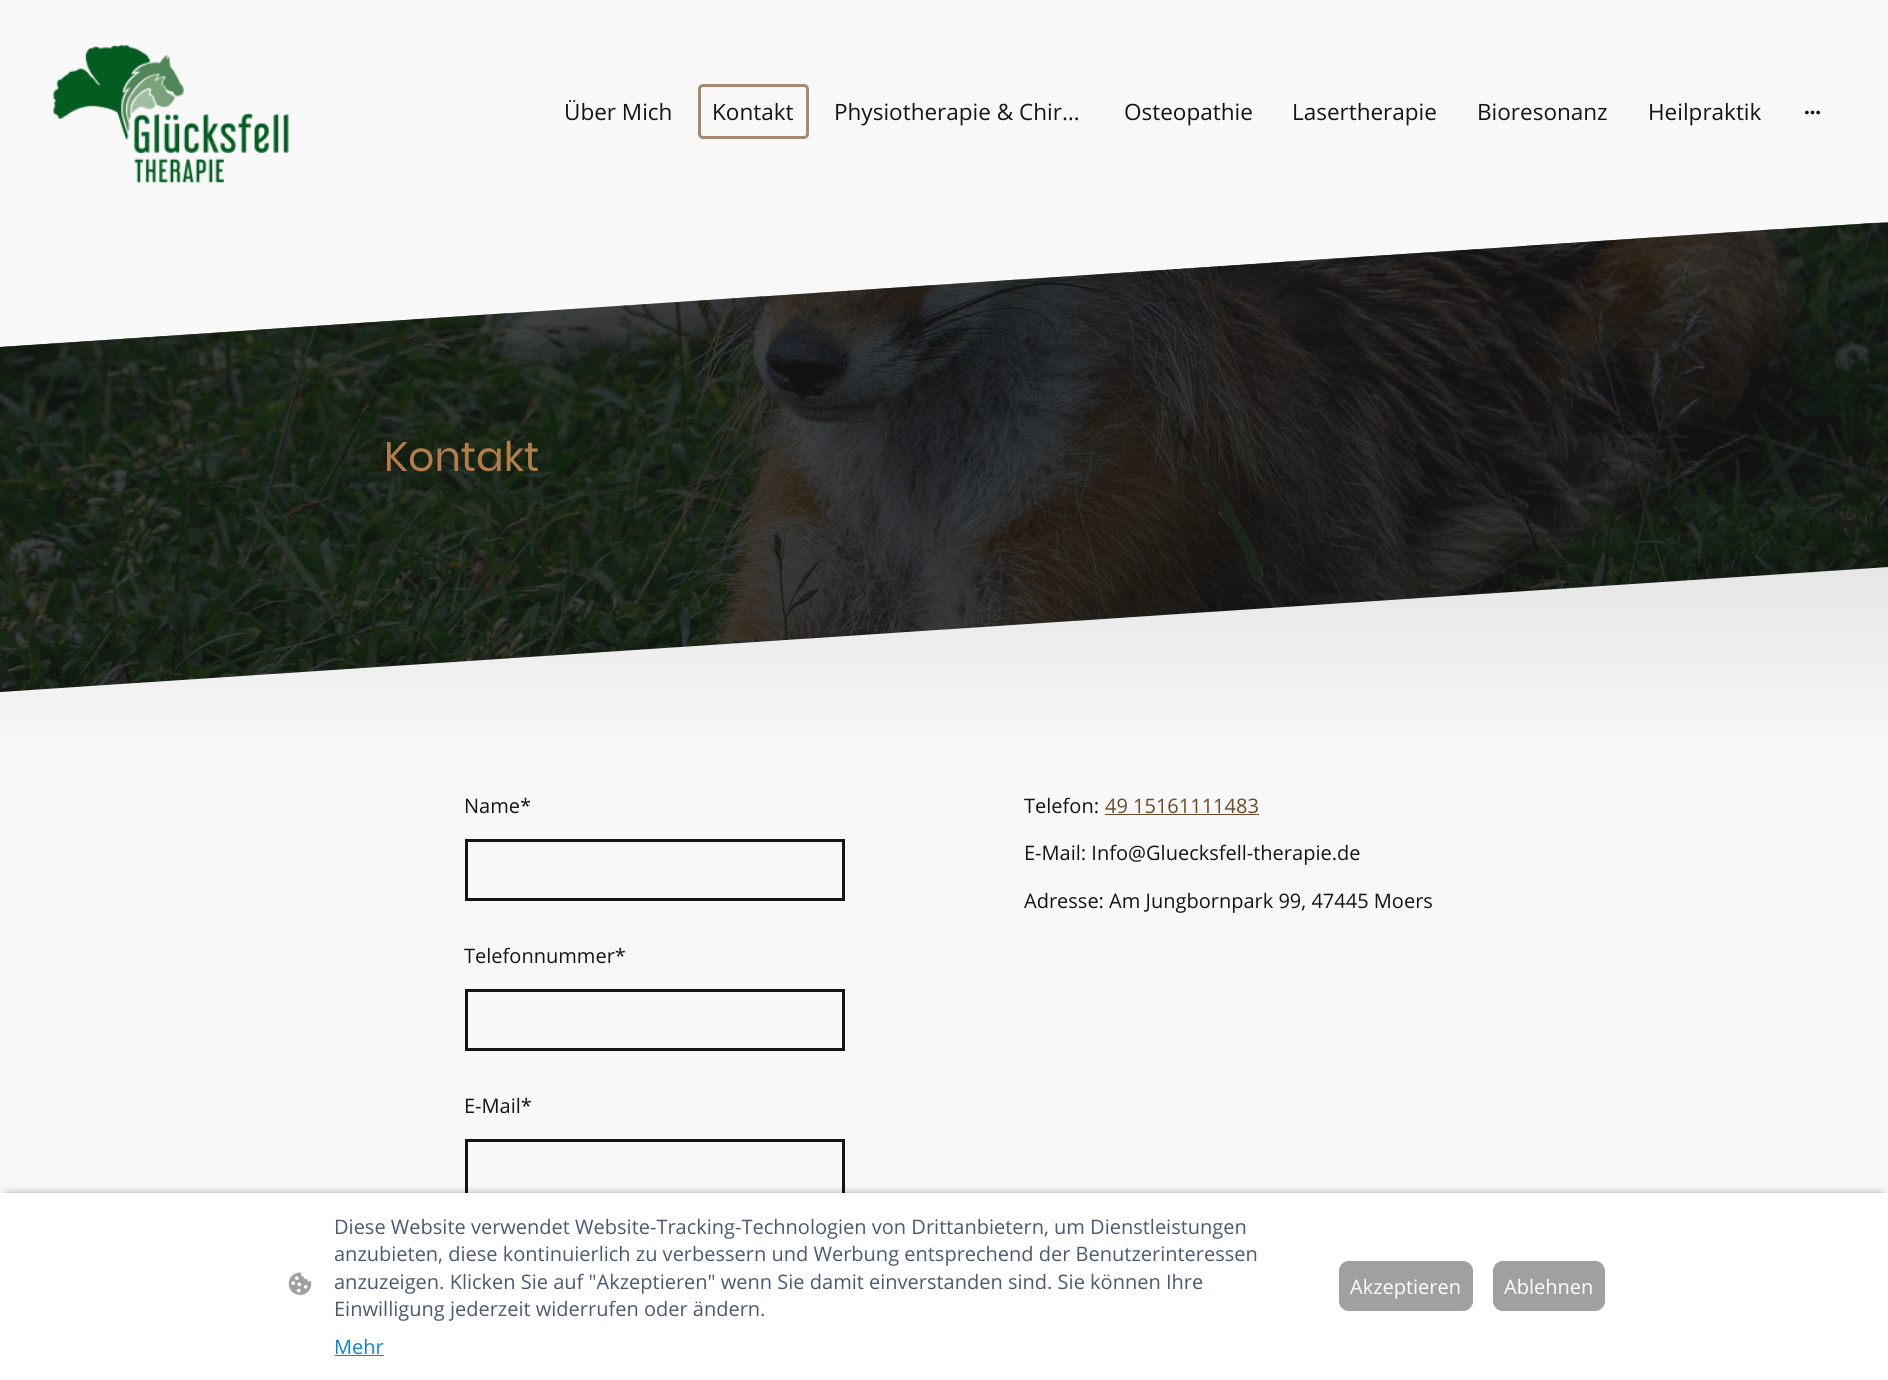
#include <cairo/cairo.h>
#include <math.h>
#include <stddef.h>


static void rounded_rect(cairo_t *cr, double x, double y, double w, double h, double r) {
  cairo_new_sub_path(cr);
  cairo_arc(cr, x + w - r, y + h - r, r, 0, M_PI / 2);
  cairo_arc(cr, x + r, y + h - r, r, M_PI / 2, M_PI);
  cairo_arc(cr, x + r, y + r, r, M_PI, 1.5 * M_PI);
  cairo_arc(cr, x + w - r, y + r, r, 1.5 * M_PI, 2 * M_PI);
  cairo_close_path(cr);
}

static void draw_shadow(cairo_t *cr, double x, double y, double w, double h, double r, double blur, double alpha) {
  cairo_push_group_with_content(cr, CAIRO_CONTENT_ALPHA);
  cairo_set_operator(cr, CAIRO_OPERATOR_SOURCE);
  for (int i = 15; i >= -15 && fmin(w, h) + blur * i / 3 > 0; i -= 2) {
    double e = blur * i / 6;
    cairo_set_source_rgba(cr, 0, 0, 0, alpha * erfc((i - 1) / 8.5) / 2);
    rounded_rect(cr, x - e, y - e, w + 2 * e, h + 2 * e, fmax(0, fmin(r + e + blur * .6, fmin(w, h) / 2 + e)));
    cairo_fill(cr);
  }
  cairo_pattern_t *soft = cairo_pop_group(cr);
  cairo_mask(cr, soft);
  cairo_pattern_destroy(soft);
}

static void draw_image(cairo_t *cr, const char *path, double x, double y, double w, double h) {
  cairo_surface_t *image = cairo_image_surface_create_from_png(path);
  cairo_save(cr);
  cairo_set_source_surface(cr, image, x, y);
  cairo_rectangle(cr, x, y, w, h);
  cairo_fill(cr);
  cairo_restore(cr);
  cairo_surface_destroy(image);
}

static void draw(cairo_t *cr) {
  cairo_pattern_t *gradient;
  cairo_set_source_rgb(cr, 248 / 255.0, 248 / 255.0, 248 / 255.0);
  cairo_paint(cr);
  draw_image(cr, "images/1.png", 52, 44, 237, 139);
  rounded_rect(cr, 699.5, 85.5, 108, 52, 3.5);
  cairo_set_source_rgb(cr, 166 / 255.0, 137 / 255.0, 111 / 255.0);
  cairo_set_line_width(cr, 3);
  cairo_stroke(cr);
  draw_image(cr, "images/2.png", 1805, 110, 15, 5);
  draw_image(cr, "images/3.png", 0, 222, 1888, 470);
  cairo_set_source_rgb(cr, 248 / 255.0, 248 / 255.0, 248 / 255.0);
  cairo_new_path(cr);
  cairo_move_to(cr, 0, 692);
  cairo_line_to(cr, 0, 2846);
  cairo_line_to(cr, 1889, 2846);
  cairo_line_to(cr, 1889, 567);
  cairo_close_path(cr);
  cairo_fill(cr);
  gradient = cairo_pattern_create_linear(944, 566, 944, 754);
  cairo_pattern_add_color_stop_rgba(gradient, 0, 0, 0, 0, 0.07);
  cairo_pattern_add_color_stop_rgba(gradient, 1, 0, 0, 0, 0);
  cairo_set_source(cr, gradient);
  cairo_pattern_destroy(gradient);
  cairo_new_path(cr);
  cairo_move_to(cr, 0, 692);
  cairo_line_to(cr, 0, 754);
  cairo_line_to(cr, 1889, 754);
  cairo_line_to(cr, 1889, 567);
  cairo_close_path(cr);
  cairo_fill(cr);
  cairo_rectangle(cr, 466.5, 840.5, 377, 59);
  cairo_set_source_rgb(cr, 21 / 255.0, 21 / 255.0, 21 / 255.0);
  cairo_stroke(cr);
  cairo_rectangle(cr, 466.5, 990.5, 377, 59);
  cairo_stroke(cr);
  cairo_rectangle(cr, 466.5, 1140.5, 377, 59);
  cairo_stroke(cr);
  cairo_set_source_rgb(cr, 109 / 255.0, 75 / 255.0, 42 / 255.0);
  cairo_rectangle(cr, 1105, 814, 154, 1);
  cairo_fill(cr);
  cairo_set_source_rgb(cr, 0, 0, 0);
  draw_shadow(cr, 8, 1196, 1873, 173, 0, 5, 0.63);
  cairo_set_source_rgb(cr, 1, 1, 1);
  cairo_rectangle(cr, 0, 1193, 1888, 187);
  cairo_fill(cr);
  draw_image(cr, "images/4.png", 288, 1272, 24, 23);
  cairo_set_source_rgb(cr, 17 / 255.0, 131 / 255.0, 209 / 255.0);
  cairo_rectangle(cr, 335, 1355, 49, 1);
  cairo_fill(cr);
  cairo_set_source_rgb(cr, 160 / 255.0, 160 / 255.0, 160 / 255.0);
  rounded_rect(cr, 1339.5, 1261.5, 133, 49, 9.5);
  cairo_fill_preserve(cr);
  cairo_set_line_width(cr, 1);
  cairo_stroke(cr);
  rounded_rect(cr, 1493.5, 1261.5, 111, 49, 9.5);
  cairo_fill_preserve(cr);
  cairo_stroke(cr);
  cairo_select_font_face(cr, "Open Sans", CAIRO_FONT_SLANT_NORMAL, CAIRO_FONT_WEIGHT_NORMAL);
  cairo_set_font_size(cr, 22.5);
  cairo_set_source_rgb(cr, 21 / 255.0, 21 / 255.0, 21 / 255.0);
  cairo_move_to(cr, 564, 120);
  cairo_show_text(cr, "Über Mich");
  cairo_move_to(cr, 712, 120);
  cairo_show_text(cr, "Kontakt");
  cairo_move_to(cr, 834, 120);
  cairo_show_text(cr, "Physiotherapie & Chir…");
  cairo_move_to(cr, 1124, 120);
  cairo_show_text(cr, "Osteopathie");
  cairo_move_to(cr, 1292, 120);
  cairo_show_text(cr, "Lasertherapie");
  cairo_move_to(cr, 1477, 120);
  cairo_show_text(cr, "Bioresonanz");
  cairo_move_to(cr, 1648, 120);
  cairo_show_text(cr, "Heilpraktik");
  cairo_select_font_face(cr, "Poppins", CAIRO_FONT_SLANT_NORMAL, CAIRO_FONT_WEIGHT_NORMAL);
  cairo_set_font_size(cr, 41);
  cairo_set_source_rgb(cr, 178 / 255.0, 125 / 255.0, 74 / 255.0);
  cairo_move_to(cr, 384, 471);
  cairo_show_text(cr, "Kontakt");
  cairo_select_font_face(cr, "Open Sans", CAIRO_FONT_SLANT_NORMAL, CAIRO_FONT_WEIGHT_NORMAL);
  cairo_set_font_size(cr, 20);
  cairo_set_source_rgb(cr, 21 / 255.0, 21 / 255.0, 21 / 255.0);
  cairo_move_to(cr, 464, 813);
  cairo_show_text(cr, "Name*");
  cairo_move_to(cr, 464, 963);
  cairo_show_text(cr, "Telefonnummer*");
  cairo_move_to(cr, 464, 1113);
  cairo_show_text(cr, "E-Mail*");
  cairo_move_to(cr, 1024, 813);
  cairo_show_text(cr, "Telefon:");
  cairo_set_source_rgb(cr, 109 / 255.0, 75 / 255.0, 42 / 255.0);
  cairo_move_to(cr, 1105, 813);
  cairo_show_text(cr, "49 15161111483");
  cairo_set_source_rgb(cr, 21 / 255.0, 21 / 255.0, 21 / 255.0);
  cairo_move_to(cr, 1024, 860);
  cairo_show_text(cr, "E-Mail: Info@Gluecksfell-therapie.de");
  cairo_move_to(cr, 1024, 908);
  cairo_show_text(cr, "Adresse: Am Jungbornpark 99, 47445 Moers");
  cairo_set_source_rgb(cr, 74 / 255.0, 90 / 255.0, 115 / 255.0);
  cairo_move_to(cr, 334, 1234);
  cairo_show_text(cr, "Diese Website verwendet Website-Tracking-Technologien von Drittanbietern, um Dienstleistungen");
  cairo_move_to(cr, 334, 1261);
  cairo_show_text(cr, "anzubieten, diese kontinuierlich zu verbessern und Werbung entsprechend der Benutzerinteressen");
  cairo_move_to(cr, 334, 1289);
  cairo_show_text(cr, "anzuzeigen. Klicken Sie auf \"Akzeptieren\" wenn Sie damit einverstanden sind. Sie können Ihre");
  cairo_move_to(cr, 334, 1316);
  cairo_show_text(cr, "Einwilligung jederzeit widerrufen oder ändern.");
  cairo_set_source_rgb(cr, 17 / 255.0, 131 / 255.0, 209 / 255.0);
  cairo_move_to(cr, 334, 1354);
  cairo_show_text(cr, "Mehr");
  cairo_set_source_rgb(cr, 1, 1, 1);
  cairo_move_to(cr, 1350, 1294);
  cairo_show_text(cr, "Akzeptieren");
  cairo_move_to(cr, 1504, 1294);
  cairo_show_text(cr, "Ablehnen");
}

int main(void) {
  cairo_surface_t *surface = cairo_image_surface_create(CAIRO_FORMAT_RGB24, 1888, 1380);
  cairo_t *cr = cairo_create(surface);
  cairo_font_options_t *options = cairo_font_options_create();
  cairo_font_options_set_hint_metrics(options, CAIRO_HINT_METRICS_OFF);
  cairo_font_options_set_hint_style(options, CAIRO_HINT_STYLE_NONE);
  cairo_set_font_options(cr, options);
  cairo_set_miter_limit(cr, 4);
  draw(cr);
  cairo_surface_write_to_png(surface, "out.png");
  cairo_font_options_destroy(options);
  cairo_destroy(cr);
  cairo_surface_destroy(surface);
  return 0;
}
